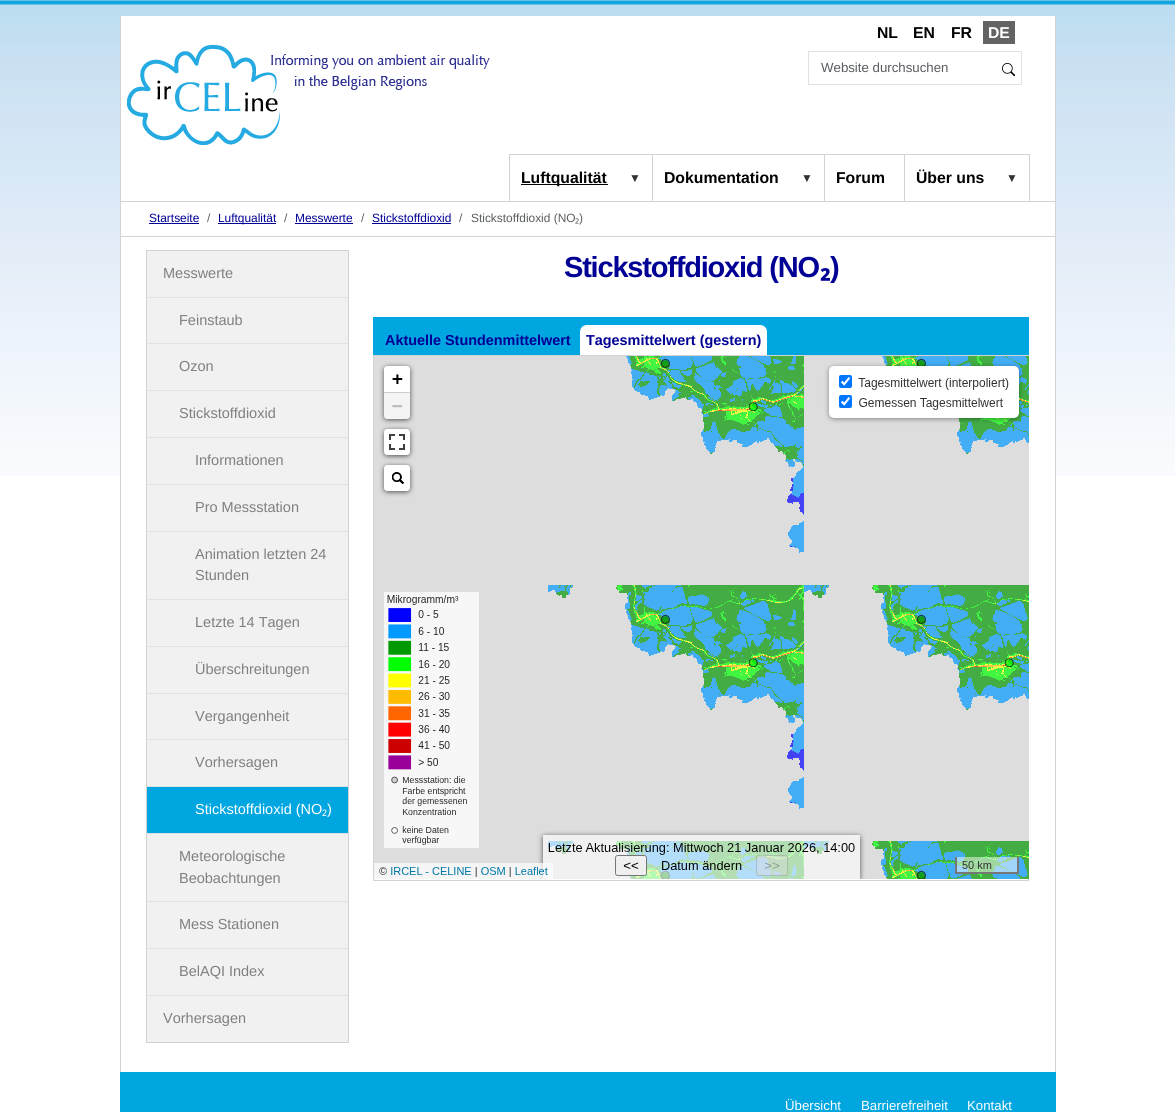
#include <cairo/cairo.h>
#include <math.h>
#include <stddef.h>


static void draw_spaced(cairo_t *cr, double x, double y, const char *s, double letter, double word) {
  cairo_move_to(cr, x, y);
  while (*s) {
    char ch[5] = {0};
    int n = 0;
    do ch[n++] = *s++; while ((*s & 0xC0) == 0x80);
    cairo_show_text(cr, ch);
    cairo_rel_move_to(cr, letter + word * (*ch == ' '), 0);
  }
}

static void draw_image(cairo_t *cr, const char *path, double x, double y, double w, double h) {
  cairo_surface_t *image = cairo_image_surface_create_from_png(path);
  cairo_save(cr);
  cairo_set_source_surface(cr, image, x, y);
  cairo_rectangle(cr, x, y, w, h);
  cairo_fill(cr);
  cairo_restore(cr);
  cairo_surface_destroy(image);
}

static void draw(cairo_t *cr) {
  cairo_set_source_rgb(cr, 1, 1, 1);
  cairo_paint(cr);
  draw_image(cr, "images/1.png", 0, 0, 1175, 476);
  cairo_set_source_rgb(cr, 1, 1, 1);
  cairo_rectangle(cr, 121, 16, 934, 185);
  cairo_fill(cr);
  cairo_set_source_rgb(cr, 211 / 255.0, 211 / 255.0, 211 / 255.0);
  cairo_rectangle(cr, 1055, 16, 1, 185);
  cairo_fill(cr);
  cairo_rectangle(cr, 120, 16, 1, 185);
  cairo_fill(cr);
  cairo_set_source_rgb(cr, 99 / 255.0, 99 / 255.0, 99 / 255.0);
  cairo_rectangle(cr, 983, 21, 32, 23);
  cairo_fill(cr);
  draw_image(cr, "images/2.png", 127, 45, 363, 100);
  cairo_rectangle(cr, 808.5, 51.5, 213, 33);
  cairo_set_source_rgb(cr, 222 / 255.0, 226 / 255.0, 230 / 255.0);
  cairo_set_line_width(cr, 1);
  cairo_stroke(cr);
  draw_image(cr, "images/3.png", 1002, 63, 13, 13);
  cairo_set_source_rgb(cr, 211 / 255.0, 211 / 255.0, 211 / 255.0);
  cairo_rectangle(cr, 509, 154, 1, 47);
  cairo_fill(cr);
  cairo_rectangle(cr, 510, 154, 520, 1);
  cairo_fill(cr);
  cairo_rectangle(cr, 652, 154, 1, 47);
  cairo_fill(cr);
  cairo_set_source_rgb(cr, 0, 0, 0);
  cairo_rectangle(cr, 521, 184, 87, 1);
  cairo_fill(cr);
  cairo_set_source_rgb(cr, 211 / 255.0, 211 / 255.0, 211 / 255.0);
  cairo_rectangle(cr, 824, 154, 1, 47);
  cairo_fill(cr);
  cairo_rectangle(cr, 904, 154, 1, 47);
  cairo_fill(cr);
  cairo_rectangle(cr, 1029, 154, 1, 47);
  cairo_fill(cr);
  cairo_set_source_rgb(cr, 1, 1, 1);
  cairo_rectangle(cr, 121, 202, 934, 34);
  cairo_fill(cr);
  cairo_set_source_rgb(cr, 211 / 255.0, 211 / 255.0, 211 / 255.0);
  cairo_rectangle(cr, 120, 201, 936, 1);
  cairo_fill(cr);
  cairo_rectangle(cr, 1055, 201, 1, 35);
  cairo_fill(cr);
  cairo_rectangle(cr, 120, 201, 1, 35);
  cairo_fill(cr);
  cairo_set_source_rgb(cr, 0, 0, 149 / 255.0);
  cairo_rectangle(cr, 149, 223, 50, 1);
  cairo_fill(cr);
  cairo_rectangle(cr, 218, 223, 58, 1);
  cairo_fill(cr);
  cairo_rectangle(cr, 295, 223, 58, 1);
  cairo_fill(cr);
  cairo_rectangle(cr, 372, 223, 79, 1);
  cairo_fill(cr);
  cairo_set_source_rgb(cr, 1, 1, 1);
  cairo_rectangle(cr, 121, 237, 934, 239);
  cairo_fill(cr);
  cairo_set_source_rgb(cr, 211 / 255.0, 211 / 255.0, 211 / 255.0);
  cairo_rectangle(cr, 120, 236, 936, 1);
  cairo_fill(cr);
  cairo_rectangle(cr, 1055, 236, 1, 836);
  cairo_fill(cr);
  cairo_rectangle(cr, 120, 236, 1, 836);
  cairo_fill(cr);
  cairo_rectangle(cr, 146.5, 250.5, 202, 792);
  cairo_set_source_rgb(cr, 210 / 255.0, 210 / 255.0, 210 / 255.0);
  cairo_stroke(cr);
  cairo_set_source_rgb(cr, 241 / 255.0, 241 / 255.0, 241 / 255.0);
  cairo_rectangle(cr, 147, 251, 201, 744);
  cairo_fill(cr);
  cairo_set_source_rgb(cr, 222 / 255.0, 226 / 255.0, 230 / 255.0);
  cairo_rectangle(cr, 147, 297, 201, 1);
  cairo_fill(cr);
  cairo_rectangle(cr, 147, 343, 201, 1);
  cairo_fill(cr);
  cairo_rectangle(cr, 147, 390, 201, 1);
  cairo_fill(cr);
  cairo_rectangle(cr, 147, 437, 201, 1);
  cairo_fill(cr);
  cairo_rectangle(cr, 147, 484, 201, 1);
  cairo_fill(cr);
  cairo_rectangle(cr, 147, 531, 201, 1);
  cairo_fill(cr);
  cairo_rectangle(cr, 147, 599, 201, 1);
  cairo_fill(cr);
  cairo_rectangle(cr, 147, 646, 201, 1);
  cairo_fill(cr);
  cairo_rectangle(cr, 147, 693, 201, 1);
  cairo_fill(cr);
  cairo_rectangle(cr, 147, 739, 201, 1);
  cairo_fill(cr);
  cairo_rectangle(cr, 147, 786, 201, 1);
  cairo_fill(cr);
  cairo_set_source_rgb(cr, 0, 166 / 255.0, 224 / 255.0);
  cairo_rectangle(cr, 147, 787, 201, 46);
  cairo_fill(cr);
  cairo_set_source_rgb(cr, 222 / 255.0, 226 / 255.0, 230 / 255.0);
  cairo_rectangle(cr, 147, 833, 201, 1);
  cairo_fill(cr);
  cairo_rectangle(cr, 147, 901, 201, 1);
  cairo_fill(cr);
  cairo_rectangle(cr, 147, 948, 201, 1);
  cairo_fill(cr);
  cairo_set_source_rgb(cr, 241 / 255.0, 241 / 255.0, 241 / 255.0);
  cairo_rectangle(cr, 147, 996, 201, 46);
  cairo_fill(cr);
  cairo_set_source_rgb(cr, 222 / 255.0, 226 / 255.0, 230 / 255.0);
  cairo_rectangle(cr, 147, 995, 201, 1);
  cairo_fill(cr);
  cairo_set_source_rgb(cr, 0, 166 / 255.0, 224 / 255.0);
  cairo_rectangle(cr, 373, 317, 656, 38);
  cairo_fill(cr);
  cairo_set_source_rgb(cr, 1, 1, 1);
  cairo_new_path(cr);
  cairo_move_to(cr, 587, 325);
  cairo_line_to(cr, 760, 325);
  cairo_curve_to(cr, 764, 325, 767, 328, 767, 332);
  cairo_line_to(cr, 767, 355);
  cairo_line_to(cr, 580, 355);
  cairo_line_to(cr, 580, 332);
  cairo_curve_to(cr, 580, 328, 583, 325, 587, 325);
  cairo_close_path(cr);
  cairo_fill(cr);
  cairo_rectangle(cr, 373.5, 355.5, 655, 525);
  cairo_set_source_rgb(cr, 211 / 255.0, 211 / 255.0, 211 / 255.0);
  cairo_stroke(cr);
  draw_image(cr, "images/4.png", 374, 356, 655, 523);
  cairo_set_source_rgb(cr, 0, 166 / 255.0, 224 / 255.0);
  cairo_rectangle(cr, 120, 1072, 936, 40);
  cairo_fill(cr);
  cairo_select_font_face(cr, "Arimo", CAIRO_FONT_SLANT_NORMAL, CAIRO_FONT_WEIGHT_BOLD);
  cairo_set_font_size(cr, 15.75);
  cairo_set_source_rgb(cr, 0, 0, 0);
  cairo_move_to(cr, 877, 38);
  cairo_show_text(cr, "NL");
  cairo_move_to(cr, 913, 38);
  cairo_show_text(cr, "EN");
  cairo_move_to(cr, 951, 38);
  cairo_show_text(cr, "FR");
  cairo_set_source_rgb(cr, 1, 1, 1);
  cairo_move_to(cr, 988, 38);
  cairo_show_text(cr, "DE");
  cairo_select_font_face(cr, "Arimo", CAIRO_FONT_SLANT_NORMAL, CAIRO_FONT_WEIGHT_NORMAL);
  cairo_set_font_size(cr, 13.25);
  cairo_set_source_rgb(cr, 89 / 255.0, 92 / 255.0, 95 / 255.0);
  cairo_move_to(cr, 821, 72);
  cairo_show_text(cr, "Website durchsuchen");
  cairo_select_font_face(cr, "Arimo", CAIRO_FONT_SLANT_NORMAL, CAIRO_FONT_WEIGHT_BOLD);
  cairo_set_font_size(cr, 15.75);
  cairo_set_source_rgb(cr, 0, 0, 0);
  cairo_move_to(cr, 521, 183);
  cairo_show_text(cr, "Luftqualität");
  cairo_select_font_face(cr, "Liberation Sans", CAIRO_FONT_SLANT_NORMAL, CAIRO_FONT_WEIGHT_BOLD);
  cairo_set_font_size(cr, 11.9);
  cairo_set_source_rgb(cr, 51 / 255.0, 51 / 255.0, 51 / 255.0);
  cairo_move_to(cr, 629, 182);
  cairo_show_text(cr, "▼");
  cairo_select_font_face(cr, "Arimo", CAIRO_FONT_SLANT_NORMAL, CAIRO_FONT_WEIGHT_BOLD);
  cairo_set_font_size(cr, 15.75);
  cairo_set_source_rgb(cr, 0, 0, 0);
  cairo_move_to(cr, 664, 183);
  cairo_show_text(cr, "Dokumentation");
  cairo_select_font_face(cr, "Liberation Sans", CAIRO_FONT_SLANT_NORMAL, CAIRO_FONT_WEIGHT_BOLD);
  cairo_set_font_size(cr, 11.9);
  cairo_set_source_rgb(cr, 51 / 255.0, 51 / 255.0, 51 / 255.0);
  cairo_move_to(cr, 801, 182);
  cairo_show_text(cr, "▼");
  cairo_select_font_face(cr, "Arimo", CAIRO_FONT_SLANT_NORMAL, CAIRO_FONT_WEIGHT_BOLD);
  cairo_set_font_size(cr, 15.75);
  cairo_set_source_rgb(cr, 0, 0, 0);
  cairo_move_to(cr, 836, 183);
  cairo_show_text(cr, "Forum");
  cairo_move_to(cr, 916, 183);
  cairo_show_text(cr, "Über uns");
  cairo_select_font_face(cr, "Liberation Sans", CAIRO_FONT_SLANT_NORMAL, CAIRO_FONT_WEIGHT_BOLD);
  cairo_set_font_size(cr, 11.9);
  cairo_set_source_rgb(cr, 51 / 255.0, 51 / 255.0, 51 / 255.0);
  cairo_move_to(cr, 1006, 182);
  cairo_show_text(cr, "▼");
  cairo_select_font_face(cr, "Arimo", CAIRO_FONT_SLANT_NORMAL, CAIRO_FONT_WEIGHT_NORMAL);
  cairo_set_source_rgb(cr, 0, 0, 149 / 255.0);
  cairo_move_to(cr, 149, 222);
  cairo_show_text(cr, "Startseite");
  cairo_set_source_rgb(cr, 89 / 255.0, 92 / 255.0, 95 / 255.0);
  cairo_move_to(cr, 207, 222);
  cairo_show_text(cr, "/");
  cairo_set_source_rgb(cr, 0, 0, 149 / 255.0);
  cairo_move_to(cr, 218, 222);
  cairo_show_text(cr, "Luftqualität");
  cairo_set_source_rgb(cr, 89 / 255.0, 92 / 255.0, 95 / 255.0);
  cairo_move_to(cr, 284, 222);
  cairo_show_text(cr, "/");
  cairo_set_source_rgb(cr, 0, 0, 149 / 255.0);
  cairo_move_to(cr, 295, 222);
  cairo_show_text(cr, "Messwerte");
  cairo_set_source_rgb(cr, 89 / 255.0, 92 / 255.0, 95 / 255.0);
  cairo_move_to(cr, 361, 222);
  cairo_show_text(cr, "/");
  cairo_set_source_rgb(cr, 0, 0, 149 / 255.0);
  cairo_move_to(cr, 372, 222);
  cairo_show_text(cr, "Stickstoffdioxid");
  cairo_set_source_rgb(cr, 89 / 255.0, 92 / 255.0, 95 / 255.0);
  cairo_move_to(cr, 459, 222);
  cairo_show_text(cr, "/");
  cairo_move_to(cr, 471, 222);
  cairo_show_text(cr, "Stickstoffdioxid (NO");
  cairo_select_font_face(cr, "Open Sans", CAIRO_FONT_SLANT_NORMAL, CAIRO_FONT_WEIGHT_NORMAL);
  cairo_move_to(cr, 575, 222);
  cairo_show_text(cr, "₂");
  cairo_select_font_face(cr, "Arimo", CAIRO_FONT_SLANT_NORMAL, CAIRO_FONT_WEIGHT_NORMAL);
  cairo_move_to(cr, 579, 222);
  cairo_show_text(cr, ")");
  cairo_set_font_size(cr, 14.5);
  cairo_set_source_rgb(cr, 128 / 255.0, 128 / 255.0, 128 / 255.0);
  cairo_move_to(cr, 163, 278);
  cairo_show_text(cr, "Messwerte");
  cairo_move_to(cr, 179, 325);
  cairo_show_text(cr, "Feinstaub");
  cairo_move_to(cr, 179, 371);
  cairo_show_text(cr, "Ozon");
  cairo_move_to(cr, 179, 418);
  cairo_show_text(cr, "Stickstoffdioxid");
  cairo_move_to(cr, 195, 465);
  cairo_show_text(cr, "Informationen");
  cairo_move_to(cr, 195, 512);
  cairo_show_text(cr, "Pro Messstation");
  cairo_move_to(cr, 195, 559);
  cairo_show_text(cr, "Animation letzten 24");
  cairo_move_to(cr, 195, 580);
  cairo_show_text(cr, "Stunden");
  cairo_move_to(cr, 195, 627);
  cairo_show_text(cr, "Letzte 14 Tagen");
  cairo_move_to(cr, 195, 674);
  cairo_show_text(cr, "Überschreitungen");
  cairo_move_to(cr, 195, 721);
  cairo_show_text(cr, "Vergangenheit");
  cairo_move_to(cr, 195, 767);
  cairo_show_text(cr, "Vorhersagen");
  cairo_set_source_rgb(cr, 1, 1, 1);
  cairo_move_to(cr, 195, 814);
  cairo_show_text(cr, "Stickstoffdioxid (NO");
  cairo_select_font_face(cr, "Open Sans", CAIRO_FONT_SLANT_NORMAL, CAIRO_FONT_WEIGHT_NORMAL);
  cairo_move_to(cr, 322, 814);
  cairo_show_text(cr, "₂");
  cairo_select_font_face(cr, "Arimo", CAIRO_FONT_SLANT_NORMAL, CAIRO_FONT_WEIGHT_NORMAL);
  cairo_move_to(cr, 327, 814);
  cairo_show_text(cr, ")");
  cairo_set_source_rgb(cr, 128 / 255.0, 128 / 255.0, 128 / 255.0);
  cairo_move_to(cr, 179, 861);
  cairo_show_text(cr, "Meteorologische");
  cairo_move_to(cr, 179, 883);
  cairo_show_text(cr, "Beobachtungen");
  cairo_move_to(cr, 179, 929);
  cairo_show_text(cr, "Mess Stationen");
  cairo_move_to(cr, 179, 976);
  cairo_show_text(cr, "BelAQI Index");
  cairo_move_to(cr, 163, 1023);
  cairo_show_text(cr, "Vorhersagen");
  cairo_select_font_face(cr, "Arimo", CAIRO_FONT_SLANT_NORMAL, CAIRO_FONT_WEIGHT_BOLD);
  cairo_set_font_size(cr, 29);
  cairo_set_source_rgb(cr, 0, 0, 149 / 255.0);
  draw_spaced(cr, 564, 277, "Stickstoffdioxid (NO", -1.2, 0);
  cairo_select_font_face(cr, "Open Sans", CAIRO_FONT_SLANT_NORMAL, CAIRO_FONT_WEIGHT_BOLD);
  draw_spaced(cr, 820, 277, "₂", -1.2, 0);
  cairo_select_font_face(cr, "Arimo", CAIRO_FONT_SLANT_NORMAL, CAIRO_FONT_WEIGHT_BOLD);
  draw_spaced(cr, 830, 277, ")", -1.2, 0);
  cairo_set_font_size(cr, 14.4);
  cairo_move_to(cr, 385, 345);
  cairo_show_text(cr, "Aktuelle Stundenmittelwert");
  cairo_move_to(cr, 586, 345);
  cairo_show_text(cr, "Tagesmittelwert (gestern)");
  cairo_select_font_face(cr, "Arimo", CAIRO_FONT_SLANT_NORMAL, CAIRO_FONT_WEIGHT_NORMAL);
  cairo_set_font_size(cr, 13.25);
  cairo_set_source_rgb(cr, 1, 1, 1);
  cairo_move_to(cr, 785, 1110);
  cairo_show_text(cr, "Übersicht");
  cairo_move_to(cr, 861, 1110);
  cairo_show_text(cr, "Barrierefreiheit");
  cairo_move_to(cr, 967, 1110);
  cairo_show_text(cr, "Kontakt");
}

int main(void) {
  cairo_surface_t *surface = cairo_image_surface_create(CAIRO_FORMAT_RGB24, 1175, 1112);
  cairo_t *cr = cairo_create(surface);
  cairo_font_options_t *options = cairo_font_options_create();
  cairo_font_options_set_hint_metrics(options, CAIRO_HINT_METRICS_OFF);
  cairo_font_options_set_hint_style(options, CAIRO_HINT_STYLE_NONE);
  cairo_set_font_options(cr, options);
  cairo_set_miter_limit(cr, 4);
  draw(cr);
  cairo_surface_write_to_png(surface, "out.png");
  cairo_font_options_destroy(options);
  cairo_destroy(cr);
  cairo_surface_destroy(surface);
  return 0;
}
